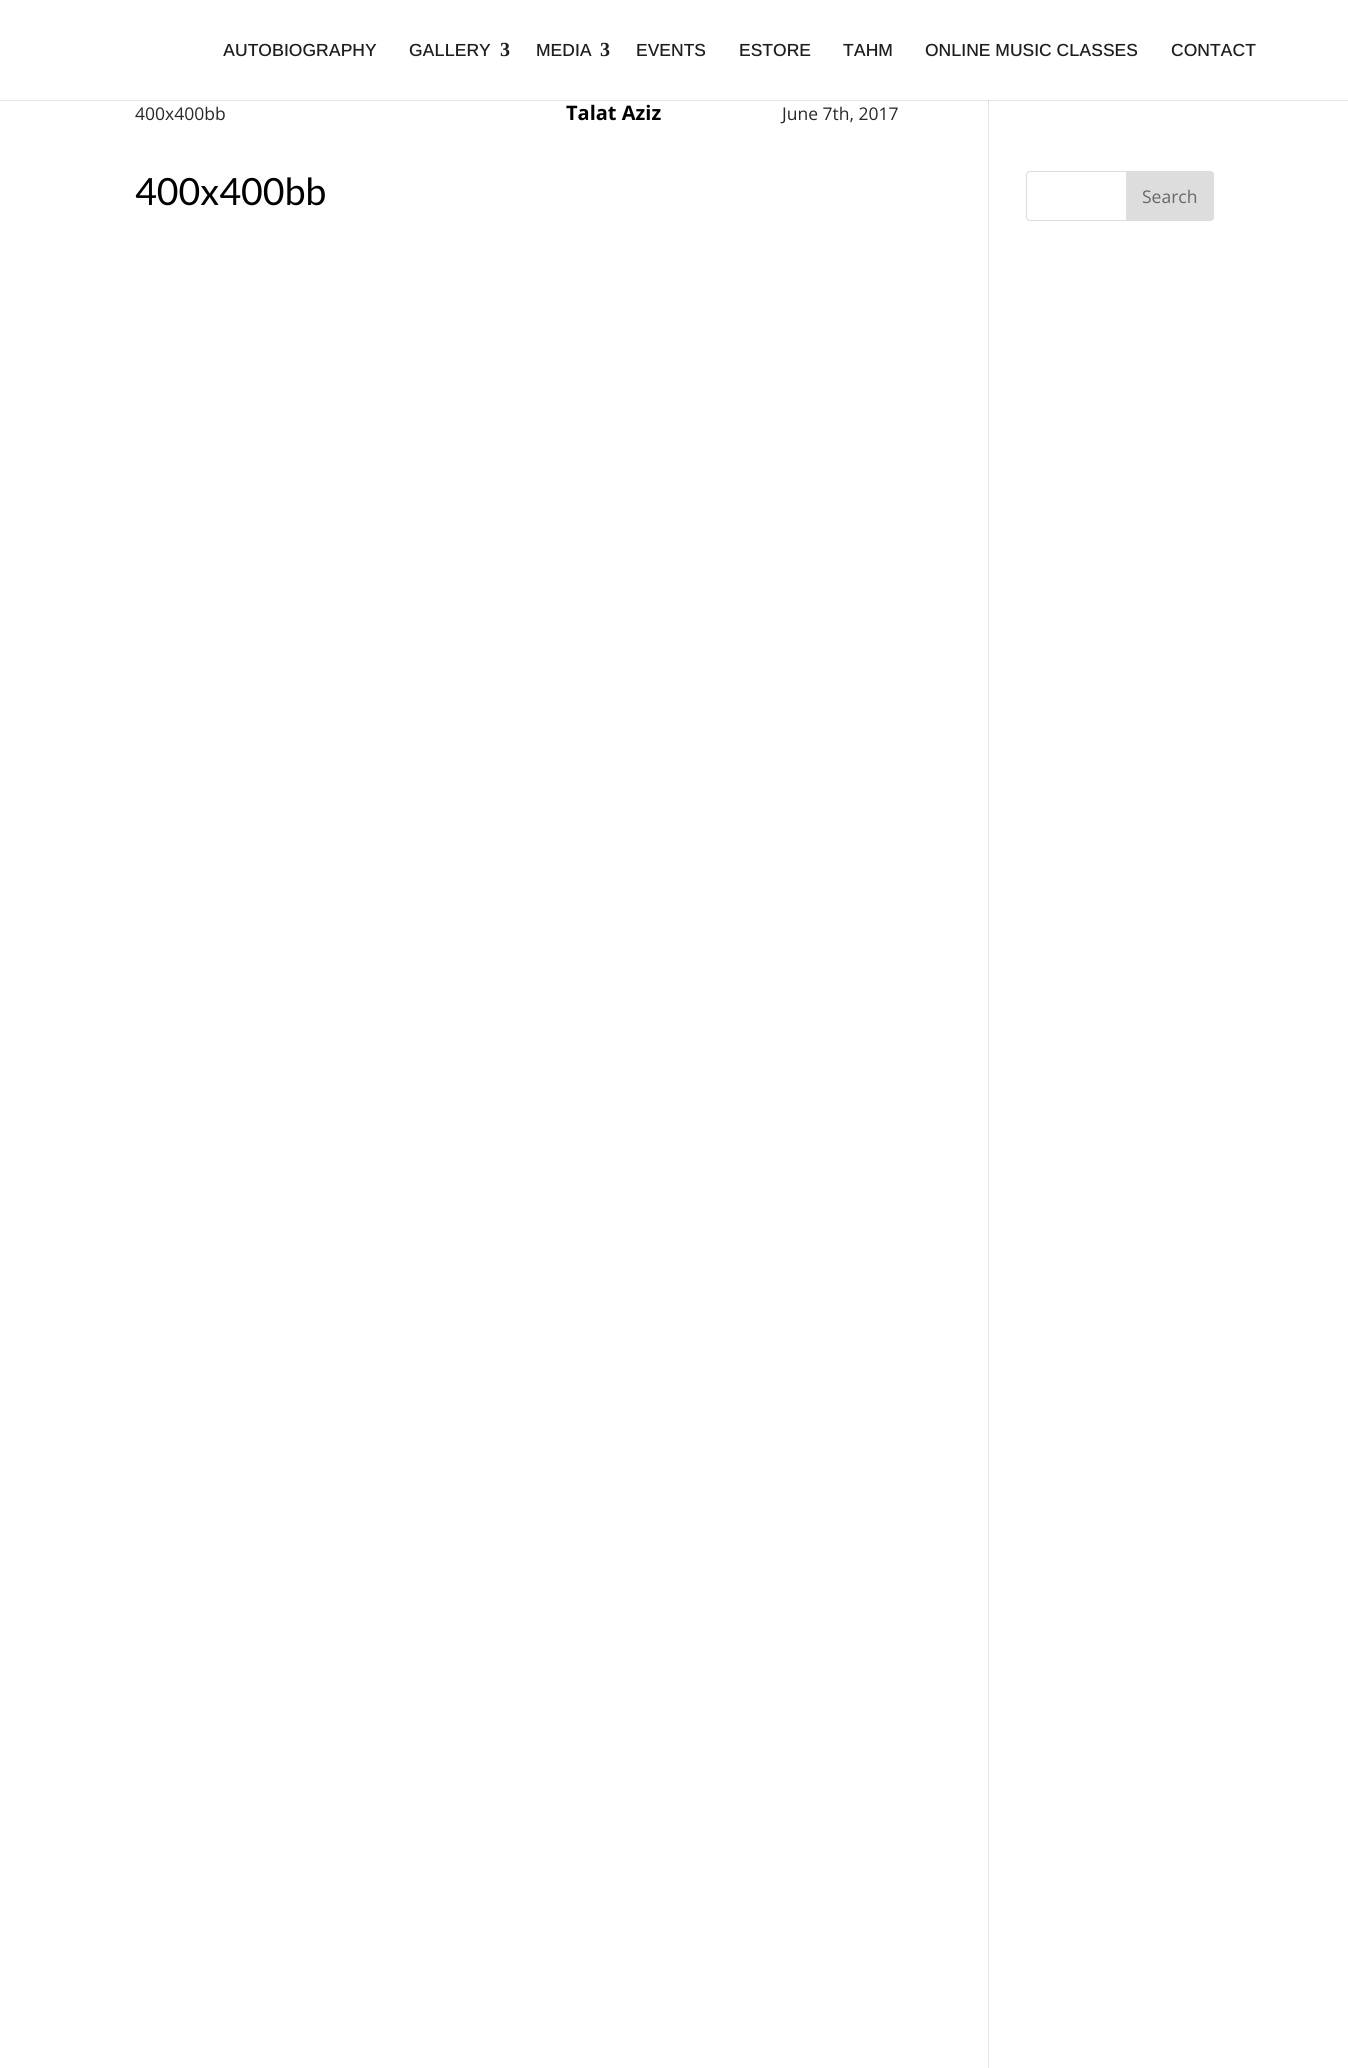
#include <cairo/cairo.h>
#include <math.h>
#include <stddef.h>


static void rounded_rect(cairo_t *cr, double x, double y, double w, double h, double r) {
  cairo_new_sub_path(cr);
  cairo_arc(cr, x + w - r, y + h - r, r, 0, M_PI / 2);
  cairo_arc(cr, x + r, y + h - r, r, M_PI / 2, M_PI);
  cairo_arc(cr, x + r, y + r, r, M_PI, 1.5 * M_PI);
  cairo_arc(cr, x + w - r, y + r, r, 1.5 * M_PI, 2 * M_PI);
  cairo_close_path(cr);
}

static void draw(cairo_t *cr) {
  cairo_set_source_rgb(cr, 1, 1, 1);
  cairo_paint(cr);
  cairo_set_source_rgb(cr, 226 / 255.0, 226 / 255.0, 226 / 255.0);
  cairo_rectangle(cr, 988, 99, 1, 1969);
  cairo_fill(cr);
  cairo_set_source_rgba(cr, 0, 0, 0, 0.1);
  cairo_new_path(cr);
  cairo_move_to(cr, 0, 100);
  cairo_line_to(cr, 0, 101);
  cairo_line_to(cr, 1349, 101);
  cairo_line_to(cr, 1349, 1);
  cairo_line_to(cr, 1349, 100);
  cairo_close_path(cr);
  cairo_fill(cr);
  cairo_set_source_rgb(cr, 1, 1, 1);
  cairo_rectangle(cr, 988, 99, 1, 1);
  cairo_fill(cr);
  rounded_rect(cr, 1026.5, 171.5, 187, 49, 3.5);
  cairo_set_source_rgb(cr, 221 / 255.0, 221 / 255.0, 221 / 255.0);
  cairo_set_line_width(cr, 1);
  cairo_stroke(cr);
  cairo_new_path(cr);
  cairo_move_to(cr, 1126.5, 171.5);
  cairo_line_to(cr, 1210, 171.5);
  cairo_curve_to(cr, 1212, 171.5, 1213.5, 173, 1213.5, 175);
  cairo_line_to(cr, 1213.5, 217);
  cairo_curve_to(cr, 1213.5, 219, 1212, 220.5, 1210, 220.5);
  cairo_line_to(cr, 1126.5, 220.5);
  cairo_close_path(cr);
  cairo_fill_preserve(cr);
  cairo_stroke(cr);
  cairo_select_font_face(cr, "Arimo Medium", CAIRO_FONT_SLANT_NORMAL, CAIRO_FONT_WEIGHT_NORMAL);
  cairo_set_font_size(cr, 17.5);
  cairo_set_source_rgb(cr, 30 / 255.0, 30 / 255.0, 30 / 255.0);
  cairo_move_to(cr, 223, 56);
  cairo_show_text(cr, "AUTOBIOGRAPHY");
  cairo_move_to(cr, 409, 56);
  cairo_show_text(cr, "GALLERY");
  cairo_select_font_face(cr, "Liberation Serif", CAIRO_FONT_SLANT_NORMAL, CAIRO_FONT_WEIGHT_BOLD);
  cairo_set_font_size(cr, 20);
  cairo_move_to(cr, 500, 56);
  cairo_show_text(cr, "3");
  cairo_select_font_face(cr, "Arimo Medium", CAIRO_FONT_SLANT_NORMAL, CAIRO_FONT_WEIGHT_NORMAL);
  cairo_set_font_size(cr, 17.5);
  cairo_move_to(cr, 536, 56);
  cairo_show_text(cr, "MEDIA");
  cairo_select_font_face(cr, "Liberation Serif", CAIRO_FONT_SLANT_NORMAL, CAIRO_FONT_WEIGHT_BOLD);
  cairo_set_font_size(cr, 20);
  cairo_move_to(cr, 600, 56);
  cairo_show_text(cr, "3");
  cairo_select_font_face(cr, "Arimo Medium", CAIRO_FONT_SLANT_NORMAL, CAIRO_FONT_WEIGHT_NORMAL);
  cairo_set_font_size(cr, 17.5);
  cairo_move_to(cr, 636, 56);
  cairo_show_text(cr, "EVENTS");
  cairo_move_to(cr, 739, 56);
  cairo_show_text(cr, "ESTORE");
  cairo_move_to(cr, 843, 56);
  cairo_show_text(cr, "TAHM");
  cairo_move_to(cr, 925, 56);
  cairo_show_text(cr, "ONLINE MUSIC CLASSES");
  cairo_move_to(cr, 1171, 56);
  cairo_show_text(cr, "CONTACT");
  cairo_select_font_face(cr, "Open Sans", CAIRO_FONT_SLANT_NORMAL, CAIRO_FONT_WEIGHT_NORMAL);
  cairo_set_source_rgb(cr, 40 / 255.0, 40 / 255.0, 40 / 255.0);
  cairo_move_to(cr, 135, 120);
  cairo_show_text(cr, "400x400bb");
  cairo_select_font_face(cr, "Open Sans", CAIRO_FONT_SLANT_NORMAL, CAIRO_FONT_WEIGHT_BOLD);
  cairo_set_font_size(cr, 20);
  cairo_set_source_rgb(cr, 0, 0, 0);
  cairo_move_to(cr, 566, 120);
  cairo_show_text(cr, "Talat Aziz");
  cairo_select_font_face(cr, "Open Sans", CAIRO_FONT_SLANT_NORMAL, CAIRO_FONT_WEIGHT_NORMAL);
  cairo_set_font_size(cr, 17.5);
  cairo_set_source_rgb(cr, 40 / 255.0, 40 / 255.0, 40 / 255.0);
  cairo_move_to(cr, 782, 120);
  cairo_show_text(cr, "June 7th, 2017");
  cairo_select_font_face(cr, "Lato", CAIRO_FONT_SLANT_NORMAL, CAIRO_FONT_WEIGHT_NORMAL);
  cairo_set_font_size(cr, 37.5);
  cairo_set_source_rgb(cr, 0, 0, 0);
  cairo_move_to(cr, 135, 205);
  cairo_show_text(cr, "400x400bb");
  cairo_select_font_face(cr, "Open Sans", CAIRO_FONT_SLANT_NORMAL, CAIRO_FONT_WEIGHT_NORMAL);
  cairo_set_font_size(cr, 17.5);
  cairo_set_source_rgb(cr, 102 / 255.0, 102 / 255.0, 102 / 255.0);
  cairo_move_to(cr, 1142, 203);
  cairo_show_text(cr, "Search");
}

int main(void) {
  cairo_surface_t *surface = cairo_image_surface_create(CAIRO_FORMAT_RGB24, 1348, 2068);
  cairo_t *cr = cairo_create(surface);
  cairo_font_options_t *options = cairo_font_options_create();
  cairo_font_options_set_hint_metrics(options, CAIRO_HINT_METRICS_OFF);
  cairo_font_options_set_hint_style(options, CAIRO_HINT_STYLE_NONE);
  cairo_set_font_options(cr, options);
  cairo_set_miter_limit(cr, 4);
  draw(cr);
  cairo_surface_write_to_png(surface, "out.png");
  cairo_font_options_destroy(options);
  cairo_destroy(cr);
  cairo_surface_destroy(surface);
  return 0;
}
